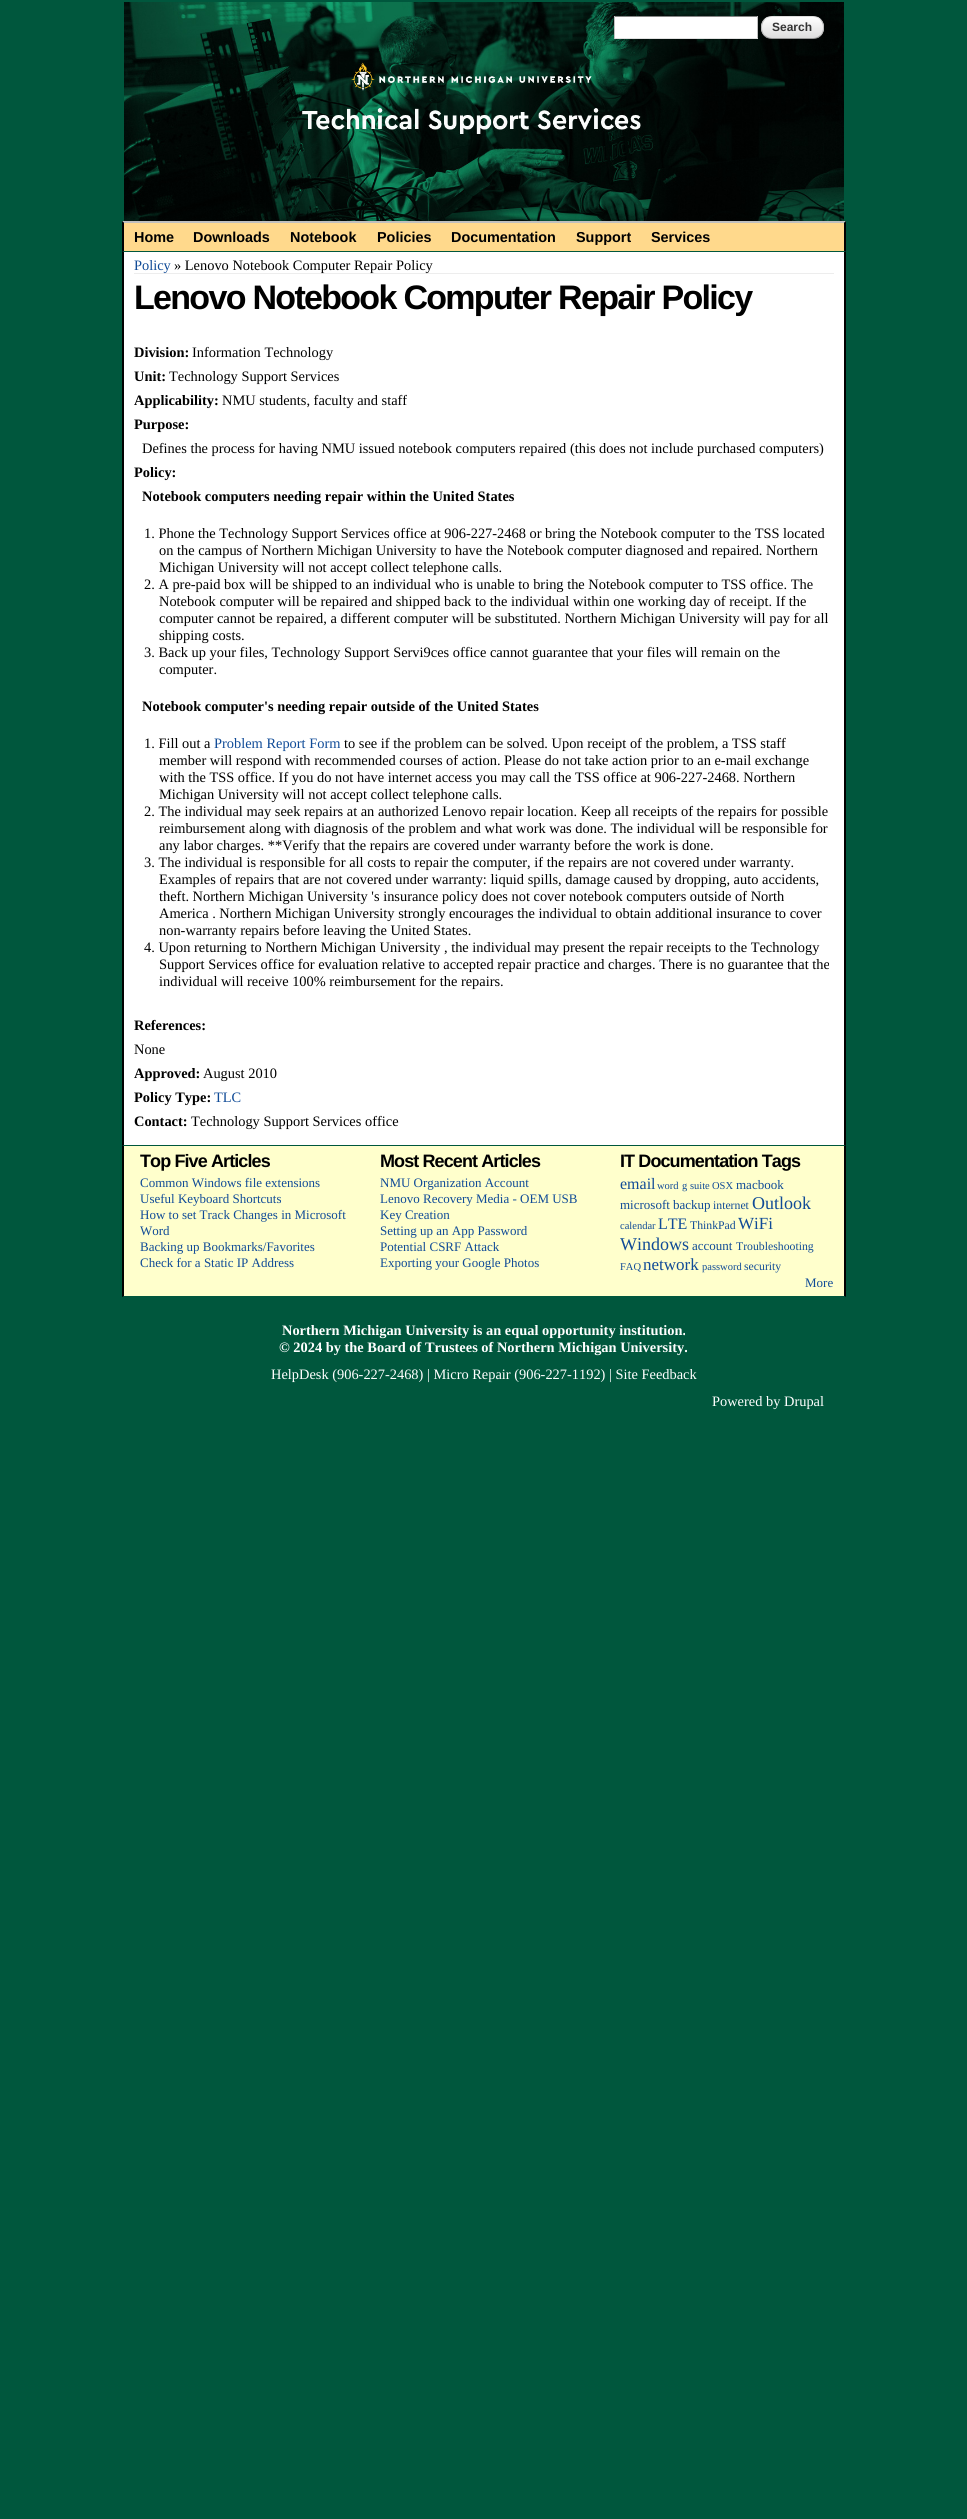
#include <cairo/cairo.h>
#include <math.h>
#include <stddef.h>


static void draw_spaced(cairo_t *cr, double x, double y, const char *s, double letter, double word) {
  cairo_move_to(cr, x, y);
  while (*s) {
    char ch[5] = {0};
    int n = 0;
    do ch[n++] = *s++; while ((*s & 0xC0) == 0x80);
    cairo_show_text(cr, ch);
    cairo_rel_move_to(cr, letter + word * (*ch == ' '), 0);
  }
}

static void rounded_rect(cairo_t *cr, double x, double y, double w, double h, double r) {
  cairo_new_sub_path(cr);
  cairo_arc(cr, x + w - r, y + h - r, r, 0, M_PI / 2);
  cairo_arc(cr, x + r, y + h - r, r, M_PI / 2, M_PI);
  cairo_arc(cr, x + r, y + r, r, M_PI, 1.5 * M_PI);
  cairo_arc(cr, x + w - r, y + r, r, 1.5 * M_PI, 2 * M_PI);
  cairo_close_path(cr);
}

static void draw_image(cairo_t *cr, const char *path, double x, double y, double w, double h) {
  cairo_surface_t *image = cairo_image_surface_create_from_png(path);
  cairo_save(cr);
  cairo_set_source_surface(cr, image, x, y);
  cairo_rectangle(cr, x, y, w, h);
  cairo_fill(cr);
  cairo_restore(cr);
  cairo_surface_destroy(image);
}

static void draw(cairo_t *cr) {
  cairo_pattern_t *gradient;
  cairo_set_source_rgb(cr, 0, 87 / 255.0, 61 / 255.0);
  cairo_paint(cr);
  draw_image(cr, "images/1.png", 124, 2, 720, 219);
  cairo_set_source_rgb(cr, 1, 1, 1);
  cairo_rectangle(cr, 615, 17, 142, 21);
  cairo_fill(cr);
  cairo_set_source_rgb(cr, 132 / 255.0, 132 / 255.0, 132 / 255.0);
  cairo_rectangle(cr, 614, 16, 144, 1);
  cairo_fill(cr);
  cairo_set_source_rgb(cr, 193 / 255.0, 193 / 255.0, 193 / 255.0);
  cairo_rectangle(cr, 757, 16, 1, 23);
  cairo_fill(cr);
  cairo_set_source_rgb(cr, 225 / 255.0, 225 / 255.0, 225 / 255.0);
  cairo_rectangle(cr, 614, 38, 144, 1);
  cairo_fill(cr);
  cairo_set_source_rgb(cr, 193 / 255.0, 193 / 255.0, 193 / 255.0);
  cairo_rectangle(cr, 614, 16, 1, 23);
  cairo_fill(cr);
  cairo_save(cr);
  rounded_rect(cr, 761, 16, 63, 23, 11);
  cairo_clip(cr);
  gradient = cairo_pattern_create_linear(762, 17, 762, 38);
  cairo_pattern_add_color_stop_rgba(gradient, 0, 1, 1, 1, 1);
  cairo_pattern_add_color_stop_rgba(gradient, 1, 221 / 255.0, 221 / 255.0, 221 / 255.0, 1);
  cairo_set_source(cr, gradient);
  cairo_pattern_destroy(gradient);
  cairo_rectangle(cr, 761, 17, 63, 21);
  cairo_fill(cr);
  cairo_restore(cr);
  cairo_new_path(cr);
  cairo_move_to(cr, 764.5, 19.5);
  cairo_curve_to(cr, 766.5, 17.5, 769, 16.5, 772, 16.5);
  cairo_line_to(cr, 813, 16.5);
  cairo_curve_to(cr, 816, 16.5, 818.5, 17.5, 820.5, 19.5);
  cairo_set_source_rgb(cr, 221 / 255.0, 221 / 255.0, 221 / 255.0);
  cairo_set_line_width(cr, 1);
  cairo_stroke(cr);
  cairo_new_path(cr);
  cairo_move_to(cr, 820.5, 19.5);
  cairo_curve_to(cr, 824.5, 23.5, 824.5, 31.5, 820.5, 35.5);
  cairo_set_source_rgb(cr, 187 / 255.0, 187 / 255.0, 187 / 255.0);
  cairo_stroke(cr);
  cairo_new_path(cr);
  cairo_move_to(cr, 820.5, 35.5);
  cairo_curve_to(cr, 818.5, 37.5, 816, 38.5, 813, 38.5);
  cairo_line_to(cr, 772, 38.5);
  cairo_curve_to(cr, 769, 38.5, 766.5, 37.5, 764.5, 35.5);
  cairo_set_source_rgb(cr, 153 / 255.0, 153 / 255.0, 153 / 255.0);
  cairo_stroke(cr);
  cairo_new_path(cr);
  cairo_move_to(cr, 764.5, 35.5);
  cairo_curve_to(cr, 760.5, 31.5, 760.5, 23.5, 764.5, 19.5);
  cairo_set_source_rgb(cr, 187 / 255.0, 187 / 255.0, 187 / 255.0);
  cairo_stroke(cr);
  cairo_set_source_rgb(cr, 1, 217 / 255.0, 140 / 255.0);
  cairo_rectangle(cr, 124, 223, 720, 28);
  cairo_fill(cr);
  cairo_set_source_rgb(cr, 191 / 255.0, 191 / 255.0, 191 / 255.0);
  cairo_new_path(cr);
  cairo_move_to(cr, 122, 221);
  cairo_line_to(cr, 846, 221);
  cairo_line_to(cr, 844, 223);
  cairo_line_to(cr, 124, 223);
  cairo_close_path(cr);
  cairo_fill(cr);
  cairo_set_source_rgb(cr, 0, 0, 0);
  cairo_new_path(cr);
  cairo_move_to(cr, 846, 221);
  cairo_line_to(cr, 846, 252);
  cairo_line_to(cr, 844, 251);
  cairo_line_to(cr, 844, 223);
  cairo_close_path(cr);
  cairo_fill(cr);
  cairo_set_source_rgb(cr, 0, 87 / 255.0, 61 / 255.0);
  cairo_new_path(cr);
  cairo_move_to(cr, 846, 252);
  cairo_line_to(cr, 122, 252);
  cairo_line_to(cr, 124, 251);
  cairo_line_to(cr, 844, 251);
  cairo_close_path(cr);
  cairo_fill(cr);
  cairo_set_source_rgb(cr, 0, 0, 0);
  cairo_new_path(cr);
  cairo_move_to(cr, 122, 252);
  cairo_line_to(cr, 122, 221);
  cairo_line_to(cr, 124, 223);
  cairo_line_to(cr, 124, 251);
  cairo_close_path(cr);
  cairo_fill(cr);
  cairo_set_source_rgb(cr, 1, 1, 1);
  cairo_rectangle(cr, 124, 252, 720, 893);
  cairo_fill(cr);
  cairo_set_source_rgb(cr, 0, 0, 0);
  cairo_rectangle(cr, 844, 252, 2, 893);
  cairo_fill(cr);
  cairo_rectangle(cr, 122, 252, 2, 893);
  cairo_fill(cr);
  cairo_set_source_rgb(cr, 237 / 255.0, 237 / 255.0, 237 / 255.0);
  cairo_rectangle(cr, 134, 273, 700, 1);
  cairo_fill(cr);
  cairo_set_source_rgb(cr, 1, 1, 204 / 255.0);
  cairo_rectangle(cr, 124, 1146, 720, 150);
  cairo_fill(cr);
  cairo_set_source_rgb(cr, 0, 0, 0);
  cairo_new_path(cr);
  cairo_move_to(cr, 846, 1145);
  cairo_line_to(cr, 846, 1297);
  cairo_line_to(cr, 844, 1296);
  cairo_line_to(cr, 844, 1146);
  cairo_close_path(cr);
  cairo_fill(cr);
  cairo_set_source_rgb(cr, 0, 87 / 255.0, 61 / 255.0);
  cairo_new_path(cr);
  cairo_move_to(cr, 846, 1297);
  cairo_line_to(cr, 122, 1297);
  cairo_line_to(cr, 124, 1296);
  cairo_line_to(cr, 844, 1296);
  cairo_close_path(cr);
  cairo_fill(cr);
  cairo_set_source_rgb(cr, 0, 0, 0);
  cairo_new_path(cr);
  cairo_move_to(cr, 122, 1297);
  cairo_line_to(cr, 122, 1145);
  cairo_line_to(cr, 124, 1146);
  cairo_line_to(cr, 124, 1296);
  cairo_close_path(cr);
  cairo_fill(cr);
  cairo_select_font_face(cr, "Liberation Sans", CAIRO_FONT_SLANT_NORMAL, CAIRO_FONT_WEIGHT_BOLD);
  cairo_set_font_size(cr, 12);
  cairo_set_source_rgb(cr, 51 / 255.0, 51 / 255.0, 51 / 255.0);
  cairo_move_to(cr, 772, 31);
  cairo_show_text(cr, "Search");
  cairo_select_font_face(cr, "Arimo", CAIRO_FONT_SLANT_NORMAL, CAIRO_FONT_WEIGHT_BOLD);
  cairo_set_font_size(cr, 14.4);
  cairo_set_source_rgb(cr, 0, 0, 0);
  cairo_move_to(cr, 134, 242);
  cairo_show_text(cr, "Home");
  cairo_move_to(cr, 193, 242);
  cairo_show_text(cr, "Downloads");
  cairo_move_to(cr, 290, 242);
  cairo_show_text(cr, "Notebook");
  cairo_move_to(cr, 377, 242);
  cairo_show_text(cr, "Policies");
  cairo_move_to(cr, 451, 242);
  cairo_show_text(cr, "Documentation");
  cairo_move_to(cr, 576, 242);
  cairo_show_text(cr, "Support");
  cairo_move_to(cr, 651, 242);
  cairo_show_text(cr, "Services");
  cairo_select_font_face(cr, "Liberation Serif", CAIRO_FONT_SLANT_NORMAL, CAIRO_FONT_WEIGHT_NORMAL);
  cairo_set_source_rgb(cr, 16 / 255.0, 75 / 255.0, 151 / 255.0);
  cairo_move_to(cr, 134, 270);
  cairo_show_text(cr, "Policy");
  cairo_set_source_rgb(cr, 0, 0, 0);
  cairo_move_to(cr, 174, 270);
  cairo_show_text(cr, "» Lenovo Notebook Computer Repair Policy");
  cairo_select_font_face(cr, "Arimo", CAIRO_FONT_SLANT_NORMAL, CAIRO_FONT_WEIGHT_BOLD);
  cairo_set_font_size(cr, 34);
  draw_spaced(cr, 134, 309, "Lenovo Notebook Computer Repair Policy", -1.7, 0);
  cairo_select_font_face(cr, "Liberation Serif", CAIRO_FONT_SLANT_NORMAL, CAIRO_FONT_WEIGHT_BOLD);
  cairo_set_font_size(cr, 14.4);
  cairo_move_to(cr, 134, 357);
  cairo_show_text(cr, "Division:");
  cairo_select_font_face(cr, "Liberation Serif", CAIRO_FONT_SLANT_NORMAL, CAIRO_FONT_WEIGHT_NORMAL);
  cairo_move_to(cr, 192, 357);
  cairo_show_text(cr, "Information Technology");
  cairo_select_font_face(cr, "Liberation Serif", CAIRO_FONT_SLANT_NORMAL, CAIRO_FONT_WEIGHT_BOLD);
  cairo_move_to(cr, 134, 381);
  cairo_show_text(cr, "Unit:");
  cairo_select_font_face(cr, "Liberation Serif", CAIRO_FONT_SLANT_NORMAL, CAIRO_FONT_WEIGHT_NORMAL);
  cairo_move_to(cr, 169, 381);
  cairo_show_text(cr, "Technology Support Services");
  cairo_select_font_face(cr, "Liberation Serif", CAIRO_FONT_SLANT_NORMAL, CAIRO_FONT_WEIGHT_BOLD);
  cairo_move_to(cr, 134, 405);
  cairo_show_text(cr, "Applicability:");
  cairo_select_font_face(cr, "Liberation Serif", CAIRO_FONT_SLANT_NORMAL, CAIRO_FONT_WEIGHT_NORMAL);
  cairo_move_to(cr, 222, 405);
  cairo_show_text(cr, "NMU students, faculty and staff");
  cairo_select_font_face(cr, "Liberation Serif", CAIRO_FONT_SLANT_NORMAL, CAIRO_FONT_WEIGHT_BOLD);
  cairo_move_to(cr, 134, 429);
  cairo_show_text(cr, "Purpose:");
  cairo_select_font_face(cr, "Liberation Serif", CAIRO_FONT_SLANT_NORMAL, CAIRO_FONT_WEIGHT_NORMAL);
  cairo_move_to(cr, 142, 453);
  cairo_show_text(cr, "Defines the process for having NMU issued notebook computers repaired (this does not include purchased computers)");
  cairo_select_font_face(cr, "Liberation Serif", CAIRO_FONT_SLANT_NORMAL, CAIRO_FONT_WEIGHT_BOLD);
  cairo_move_to(cr, 134, 477);
  cairo_show_text(cr, "Policy:");
  cairo_move_to(cr, 142, 501);
  cairo_show_text(cr, "Notebook computers needing repair within the United States");
  cairo_select_font_face(cr, "Liberation Serif", CAIRO_FONT_SLANT_NORMAL, CAIRO_FONT_WEIGHT_NORMAL);
  cairo_move_to(cr, 144, 538);
  cairo_show_text(cr, "1. Phone the Technology Support Services office at 906-227-2468 or bring the Notebook computer to the TSS located");
  cairo_move_to(cr, 159, 555);
  cairo_show_text(cr, "on the campus of Northern Michigan University to have the Notebook computer diagnosed and repaired. Northern");
  cairo_move_to(cr, 159, 572);
  cairo_show_text(cr, "Michigan University will not accept collect telephone calls.");
  cairo_move_to(cr, 144, 589);
  cairo_show_text(cr, "2. A pre-paid box will be shipped to an individual who is unable to bring the Notebook computer to TSS office. The");
  cairo_move_to(cr, 159, 606);
  cairo_show_text(cr, "Notebook computer will be repaired and shipped back to the individual within one working day of receipt. If the");
  cairo_move_to(cr, 159, 623);
  cairo_show_text(cr, "computer cannot be repaired, a different computer will be substituted. Northern Michigan University will pay for all");
  cairo_move_to(cr, 159, 640);
  cairo_show_text(cr, "shipping costs.");
  cairo_move_to(cr, 144, 657);
  cairo_show_text(cr, "3. Back up your files, Technology Support Servi9ces office cannot guarantee that your files will remain on the");
  cairo_move_to(cr, 159, 674);
  cairo_show_text(cr, "computer.");
  cairo_select_font_face(cr, "Liberation Serif", CAIRO_FONT_SLANT_NORMAL, CAIRO_FONT_WEIGHT_BOLD);
  cairo_move_to(cr, 142, 711);
  cairo_show_text(cr, "Notebook computer's needing repair outside of the United States");
  cairo_select_font_face(cr, "Liberation Serif", CAIRO_FONT_SLANT_NORMAL, CAIRO_FONT_WEIGHT_NORMAL);
  cairo_move_to(cr, 144, 748);
  cairo_show_text(cr, "1. Fill out a");
  cairo_set_source_rgb(cr, 16 / 255.0, 75 / 255.0, 151 / 255.0);
  cairo_move_to(cr, 214, 748);
  cairo_show_text(cr, "Problem Report Form");
  cairo_set_source_rgb(cr, 0, 0, 0);
  cairo_move_to(cr, 344, 748);
  cairo_show_text(cr, "to see if the problem can be solved. Upon receipt of the problem, a TSS staff");
  cairo_move_to(cr, 159, 765);
  cairo_show_text(cr, "member will respond with recommended courses of action. Please do not take action prior to an e-mail exchange");
  cairo_move_to(cr, 159, 782);
  cairo_show_text(cr, "with the TSS office. If you do not have internet access you may call the TSS office at 906-227-2468. Northern");
  cairo_move_to(cr, 159, 799);
  cairo_show_text(cr, "Michigan University will not accept collect telephone calls.");
  cairo_move_to(cr, 144, 816);
  cairo_show_text(cr, "2. The individual may seek repairs at an authorized Lenovo repair location. Keep all receipts of the repairs for possible");
  cairo_move_to(cr, 159, 833);
  cairo_show_text(cr, "reimbursement along with diagnosis of the problem and what work was done. The individual will be responsible for");
  cairo_move_to(cr, 159, 850);
  cairo_show_text(cr, "any labor charges. **Verify that the repairs are covered under warranty before the work is done.");
  cairo_move_to(cr, 144, 867);
  cairo_show_text(cr, "3. The individual is responsible for all costs to repair the computer, if the repairs are not covered under warranty.");
  cairo_move_to(cr, 159, 884);
  cairo_show_text(cr, "Examples of repairs that are not covered under warranty: liquid spills, damage caused by dropping, auto accidents,");
  cairo_move_to(cr, 159, 901);
  cairo_show_text(cr, "theft. Northern Michigan University 's insurance policy does not cover notebook computers outside of North");
  cairo_move_to(cr, 159, 918);
  cairo_show_text(cr, "America . Northern Michigan University strongly encourages the individual to obtain additional insurance to cover");
  cairo_move_to(cr, 159, 935);
  cairo_show_text(cr, "non-warranty repairs before leaving the United States.");
  cairo_move_to(cr, 144, 952);
  cairo_show_text(cr, "4. Upon returning to Northern Michigan University , the individual may present the repair receipts to the Technology");
  cairo_move_to(cr, 159, 969);
  cairo_show_text(cr, "Support Services office for evaluation relative to accepted repair practice and charges. There is no guarantee that the");
  cairo_move_to(cr, 159, 986);
  cairo_show_text(cr, "individual will receive 100% reimbursement for the repairs.");
  cairo_select_font_face(cr, "Liberation Serif", CAIRO_FONT_SLANT_NORMAL, CAIRO_FONT_WEIGHT_BOLD);
  cairo_move_to(cr, 134, 1030);
  cairo_show_text(cr, "References:");
  cairo_select_font_face(cr, "Liberation Serif", CAIRO_FONT_SLANT_NORMAL, CAIRO_FONT_WEIGHT_NORMAL);
  cairo_move_to(cr, 134, 1054);
  cairo_show_text(cr, "None");
  cairo_select_font_face(cr, "Liberation Serif", CAIRO_FONT_SLANT_NORMAL, CAIRO_FONT_WEIGHT_BOLD);
  cairo_move_to(cr, 134, 1078);
  cairo_show_text(cr, "Approved:");
  cairo_select_font_face(cr, "Liberation Serif", CAIRO_FONT_SLANT_NORMAL, CAIRO_FONT_WEIGHT_NORMAL);
  cairo_move_to(cr, 203, 1078);
  cairo_show_text(cr, "August 2010");
  cairo_select_font_face(cr, "Liberation Serif", CAIRO_FONT_SLANT_NORMAL, CAIRO_FONT_WEIGHT_BOLD);
  cairo_move_to(cr, 134, 1102);
  cairo_show_text(cr, "Policy Type:");
  cairo_select_font_face(cr, "Liberation Serif", CAIRO_FONT_SLANT_NORMAL, CAIRO_FONT_WEIGHT_NORMAL);
  cairo_set_source_rgb(cr, 16 / 255.0, 75 / 255.0, 151 / 255.0);
  cairo_move_to(cr, 214, 1102);
  cairo_show_text(cr, "TLC");
  cairo_select_font_face(cr, "Liberation Serif", CAIRO_FONT_SLANT_NORMAL, CAIRO_FONT_WEIGHT_BOLD);
  cairo_set_source_rgb(cr, 0, 0, 0);
  cairo_move_to(cr, 134, 1126);
  cairo_show_text(cr, "Contact:");
  cairo_select_font_face(cr, "Liberation Serif", CAIRO_FONT_SLANT_NORMAL, CAIRO_FONT_WEIGHT_NORMAL);
  cairo_move_to(cr, 191, 1126);
  cairo_show_text(cr, "Technology Support Services office");
  cairo_select_font_face(cr, "Arimo", CAIRO_FONT_SLANT_NORMAL, CAIRO_FONT_WEIGHT_BOLD);
  cairo_set_font_size(cr, 18);
  draw_spaced(cr, 140, 1167, "Top Five Articles", -0.9, 0);
  cairo_select_font_face(cr, "Liberation Serif", CAIRO_FONT_SLANT_NORMAL, CAIRO_FONT_WEIGHT_NORMAL);
  cairo_set_font_size(cr, 13);
  cairo_set_source_rgb(cr, 16 / 255.0, 75 / 255.0, 151 / 255.0);
  cairo_move_to(cr, 140, 1187);
  cairo_show_text(cr, "Common Windows file extensions");
  cairo_move_to(cr, 140, 1203);
  cairo_show_text(cr, "Useful Keyboard Shortcuts");
  cairo_move_to(cr, 140, 1219);
  cairo_show_text(cr, "How to set Track Changes in Microsoft");
  cairo_move_to(cr, 140, 1235);
  cairo_show_text(cr, "Word");
  cairo_move_to(cr, 140, 1251);
  cairo_show_text(cr, "Backing up Bookmarks/Favorites");
  cairo_move_to(cr, 140, 1267);
  cairo_show_text(cr, "Check for a Static IP Address");
  cairo_select_font_face(cr, "Arimo", CAIRO_FONT_SLANT_NORMAL, CAIRO_FONT_WEIGHT_BOLD);
  cairo_set_font_size(cr, 18);
  cairo_set_source_rgb(cr, 0, 0, 0);
  draw_spaced(cr, 380, 1167, "Most Recent Articles", -0.9, 0);
  cairo_select_font_face(cr, "Liberation Serif", CAIRO_FONT_SLANT_NORMAL, CAIRO_FONT_WEIGHT_NORMAL);
  cairo_set_font_size(cr, 13);
  cairo_set_source_rgb(cr, 16 / 255.0, 75 / 255.0, 151 / 255.0);
  cairo_move_to(cr, 380, 1187);
  cairo_show_text(cr, "NMU Organization Account");
  cairo_move_to(cr, 380, 1203);
  cairo_show_text(cr, "Lenovo Recovery Media - OEM USB");
  cairo_move_to(cr, 380, 1219);
  cairo_show_text(cr, "Key Creation");
  cairo_move_to(cr, 380, 1235);
  cairo_show_text(cr, "Setting up an App Password");
  cairo_move_to(cr, 380, 1251);
  cairo_show_text(cr, "Potential CSRF Attack");
  cairo_move_to(cr, 380, 1267);
  cairo_show_text(cr, "Exporting your Google Photos");
  cairo_select_font_face(cr, "Arimo", CAIRO_FONT_SLANT_NORMAL, CAIRO_FONT_WEIGHT_BOLD);
  cairo_set_font_size(cr, 18);
  cairo_set_source_rgb(cr, 0, 0, 0);
  draw_spaced(cr, 620, 1167, "IT Documentation Tags", -0.9, 0);
  cairo_select_font_face(cr, "Liberation Serif", CAIRO_FONT_SLANT_NORMAL, CAIRO_FONT_WEIGHT_NORMAL);
  cairo_set_font_size(cr, 16);
  cairo_set_source_rgb(cr, 16 / 255.0, 75 / 255.0, 151 / 255.0);
  cairo_move_to(cr, 620, 1189);
  cairo_show_text(cr, "email");
  cairo_set_font_size(cr, 10.5);
  cairo_move_to(cr, 657, 1189);
  cairo_show_text(cr, "word");
  cairo_move_to(cr, 682, 1189);
  cairo_show_text(cr, "g suite");
  cairo_move_to(cr, 712, 1189);
  cairo_show_text(cr, "OSX");
  cairo_set_font_size(cr, 13);
  cairo_move_to(cr, 736, 1189);
  cairo_show_text(cr, "macbook");
  cairo_move_to(cr, 620, 1209);
  cairo_show_text(cr, "microsoft backup");
  cairo_set_font_size(cr, 11.75);
  cairo_move_to(cr, 713, 1209);
  cairo_show_text(cr, "internet");
  cairo_set_font_size(cr, 18);
  cairo_move_to(cr, 752, 1209);
  cairo_show_text(cr, "Outlook");
  cairo_set_font_size(cr, 10.5);
  cairo_move_to(cr, 620, 1229);
  cairo_show_text(cr, "calendar");
  cairo_set_font_size(cr, 16);
  cairo_move_to(cr, 658, 1229);
  cairo_show_text(cr, "LTE");
  cairo_set_font_size(cr, 11.75);
  cairo_move_to(cr, 690, 1229);
  cairo_show_text(cr, "ThinkPad");
  cairo_set_font_size(cr, 17);
  cairo_move_to(cr, 738, 1229);
  cairo_show_text(cr, "WiFi");
  cairo_set_font_size(cr, 18);
  cairo_move_to(cr, 620, 1250);
  cairo_show_text(cr, "Windows");
  cairo_set_font_size(cr, 13);
  cairo_move_to(cr, 692, 1250);
  cairo_show_text(cr, "account");
  cairo_set_font_size(cr, 11.75);
  cairo_move_to(cr, 736, 1250);
  cairo_show_text(cr, "Troubleshooting");
  cairo_set_font_size(cr, 10.5);
  cairo_move_to(cr, 620, 1270);
  cairo_show_text(cr, "FAQ");
  cairo_set_font_size(cr, 17);
  cairo_move_to(cr, 643, 1270);
  cairo_show_text(cr, "network");
  cairo_set_font_size(cr, 10.5);
  cairo_move_to(cr, 702, 1270);
  cairo_show_text(cr, "password");
  cairo_set_font_size(cr, 11.75);
  cairo_move_to(cr, 744, 1270);
  cairo_show_text(cr, "security");
  cairo_set_font_size(cr, 13);
  cairo_move_to(cr, 805, 1287);
  cairo_show_text(cr, "More");
  cairo_select_font_face(cr, "Liberation Serif", CAIRO_FONT_SLANT_NORMAL, CAIRO_FONT_WEIGHT_BOLD);
  cairo_set_font_size(cr, 14.4);
  cairo_set_source_rgb(cr, 1, 1, 1);
  cairo_move_to(cr, 282, 1335);
  cairo_show_text(cr, "Northern Michigan University is an equal opportunity institution.");
  cairo_move_to(cr, 279, 1352);
  cairo_show_text(cr, "© 2024 by the Board of Trustees of Northern Michigan University.");
  cairo_select_font_face(cr, "Liberation Serif", CAIRO_FONT_SLANT_NORMAL, CAIRO_FONT_WEIGHT_NORMAL);
  cairo_move_to(cr, 271, 1379);
  cairo_show_text(cr, "HelpDesk (906-227-2468) | Micro Repair (906-227-1192) | Site Feedback");
  cairo_move_to(cr, 712, 1406);
  cairo_show_text(cr, "Powered by Drupal");
}

int main(void) {
  cairo_surface_t *surface = cairo_image_surface_create(CAIRO_FORMAT_RGB24, 967, 2519);
  cairo_t *cr = cairo_create(surface);
  cairo_font_options_t *options = cairo_font_options_create();
  cairo_font_options_set_hint_metrics(options, CAIRO_HINT_METRICS_OFF);
  cairo_font_options_set_hint_style(options, CAIRO_HINT_STYLE_NONE);
  cairo_set_font_options(cr, options);
  cairo_set_miter_limit(cr, 4);
  draw(cr);
  cairo_surface_write_to_png(surface, "out.png");
  cairo_font_options_destroy(options);
  cairo_destroy(cr);
  cairo_surface_destroy(surface);
  return 0;
}
